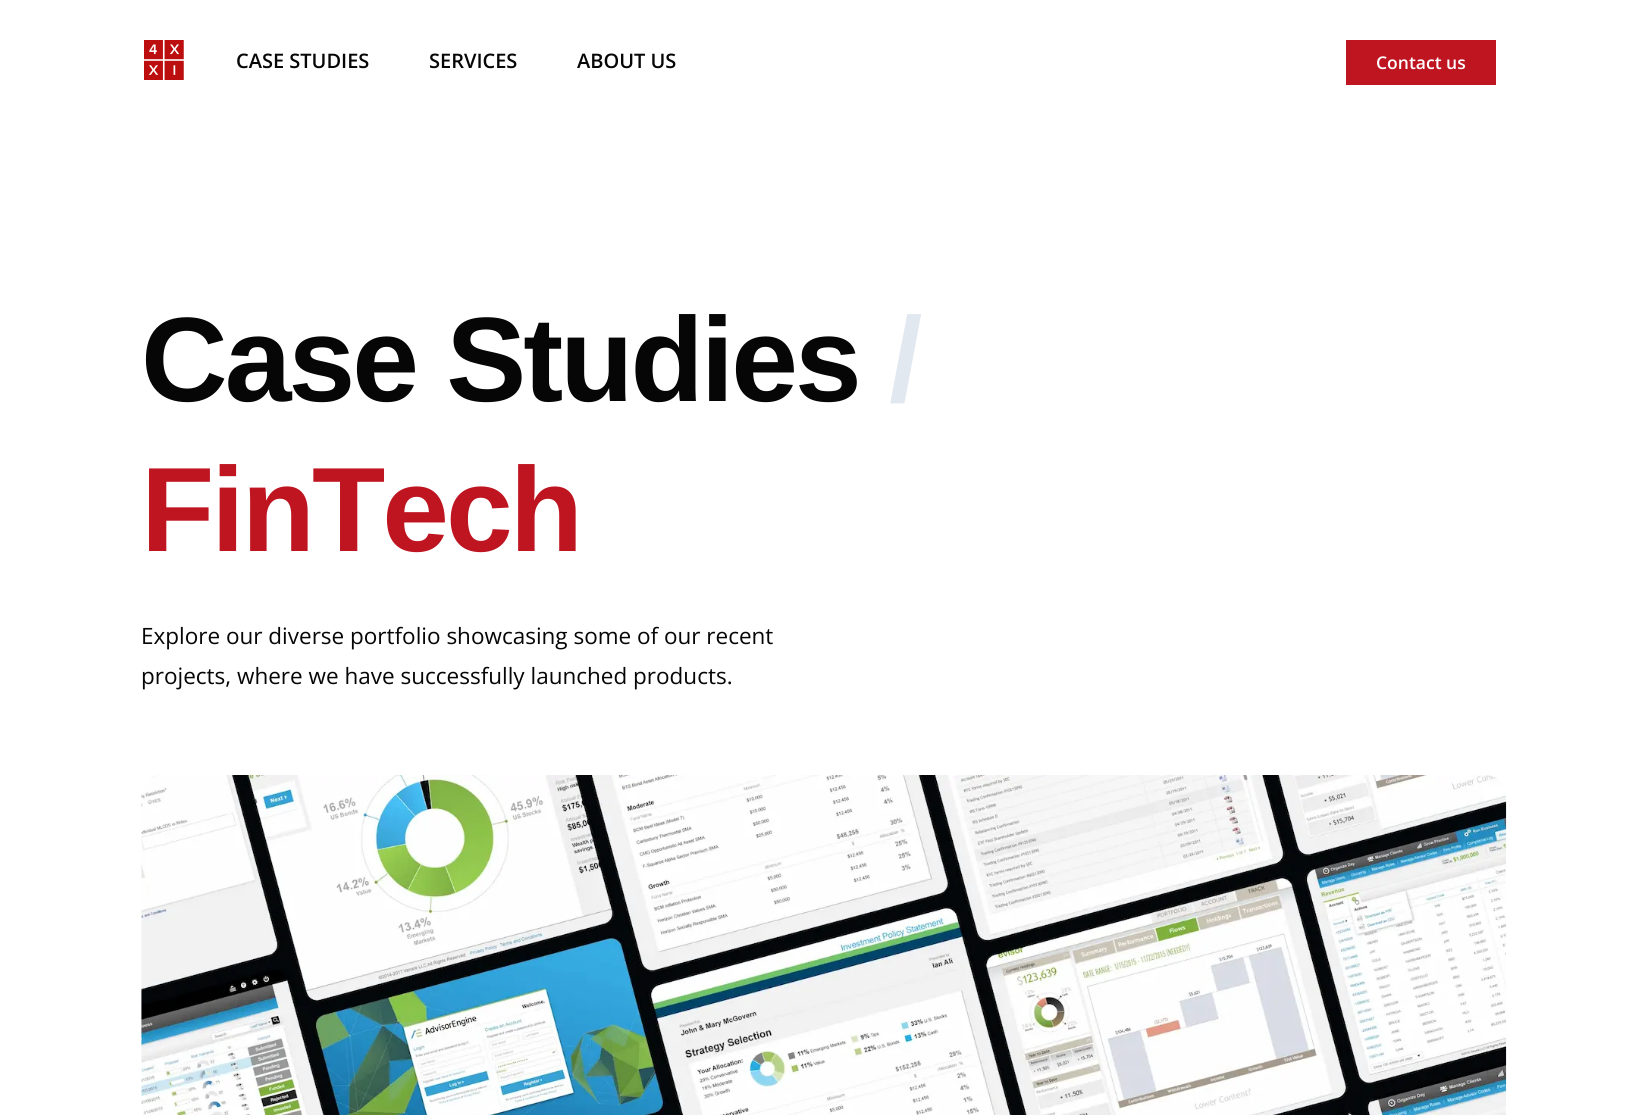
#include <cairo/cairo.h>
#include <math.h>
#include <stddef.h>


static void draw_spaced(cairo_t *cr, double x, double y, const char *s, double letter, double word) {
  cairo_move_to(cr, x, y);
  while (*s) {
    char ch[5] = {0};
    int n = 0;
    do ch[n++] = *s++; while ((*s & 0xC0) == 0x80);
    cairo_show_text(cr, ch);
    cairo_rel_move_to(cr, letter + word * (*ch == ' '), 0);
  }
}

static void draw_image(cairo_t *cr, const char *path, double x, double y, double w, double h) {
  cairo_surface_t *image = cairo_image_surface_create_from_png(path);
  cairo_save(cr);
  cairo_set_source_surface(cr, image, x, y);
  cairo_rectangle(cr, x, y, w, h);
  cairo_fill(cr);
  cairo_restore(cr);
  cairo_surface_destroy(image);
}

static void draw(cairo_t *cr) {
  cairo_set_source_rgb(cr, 1, 1, 1);
  cairo_paint(cr);
  draw_image(cr, "images/1.png", 144, 40, 40, 40);
  cairo_set_source_rgb(cr, 190 / 255.0, 21 / 255.0, 33 / 255.0);
  cairo_rectangle(cr, 1346, 40, 150, 45);
  cairo_fill(cr);
  draw_image(cr, "images/2.png", 141, 775, 1366, 340);
  cairo_select_font_face(cr, "Open Sans SemiBold", CAIRO_FONT_SLANT_NORMAL, CAIRO_FONT_WEIGHT_NORMAL);
  cairo_set_font_size(cr, 20);
  cairo_set_source_rgb(cr, 6 / 255.0, 6 / 255.0, 6 / 255.0);
  cairo_move_to(cr, 236, 68);
  cairo_show_text(cr, "CASE STUDIES");
  cairo_move_to(cr, 429, 68);
  cairo_show_text(cr, "SERVICES");
  cairo_move_to(cr, 577, 68);
  cairo_show_text(cr, "ABOUT US");
  cairo_set_font_size(cr, 17.5);
  cairo_set_source_rgb(cr, 1, 1, 1);
  cairo_move_to(cr, 1376, 69);
  cairo_show_text(cr, "Contact us");
  cairo_select_font_face(cr, "Liberation Sans", CAIRO_FONT_SLANT_NORMAL, CAIRO_FONT_WEIGHT_BOLD);
  cairo_set_font_size(cr, 120);
  cairo_set_source_rgb(cr, 6 / 255.0, 6 / 255.0, 6 / 255.0);
  draw_spaced(cr, 141, 401, "Case Studies", -3, 0);
  cairo_set_source_rgb(cr, 226 / 255.0, 232 / 255.0, 240 / 255.0);
  draw_spaced(cr, 889, 401, "/", -3, 0);
  cairo_set_source_rgb(cr, 190 / 255.0, 21 / 255.0, 33 / 255.0);
  draw_spaced(cr, 141, 551, "FinTech", -3, 0);
  cairo_select_font_face(cr, "Open Sans", CAIRO_FONT_SLANT_NORMAL, CAIRO_FONT_WEIGHT_NORMAL);
  cairo_set_font_size(cr, 22.5);
  cairo_set_source_rgb(cr, 6 / 255.0, 6 / 255.0, 6 / 255.0);
  cairo_move_to(cr, 141, 644);
  cairo_show_text(cr, "Explore our diverse portfolio showcasing some of our recent");
  cairo_move_to(cr, 141, 684);
  cairo_show_text(cr, "projects, where we have successfully launched products.");
}

int main(void) {
  cairo_surface_t *surface = cairo_image_surface_create(CAIRO_FORMAT_RGB24, 1646, 1115);
  cairo_t *cr = cairo_create(surface);
  cairo_font_options_t *options = cairo_font_options_create();
  cairo_font_options_set_hint_metrics(options, CAIRO_HINT_METRICS_OFF);
  cairo_font_options_set_hint_style(options, CAIRO_HINT_STYLE_NONE);
  cairo_set_font_options(cr, options);
  cairo_set_miter_limit(cr, 4);
  draw(cr);
  cairo_surface_write_to_png(surface, "out.png");
  cairo_font_options_destroy(options);
  cairo_destroy(cr);
  cairo_surface_destroy(surface);
  return 0;
}
